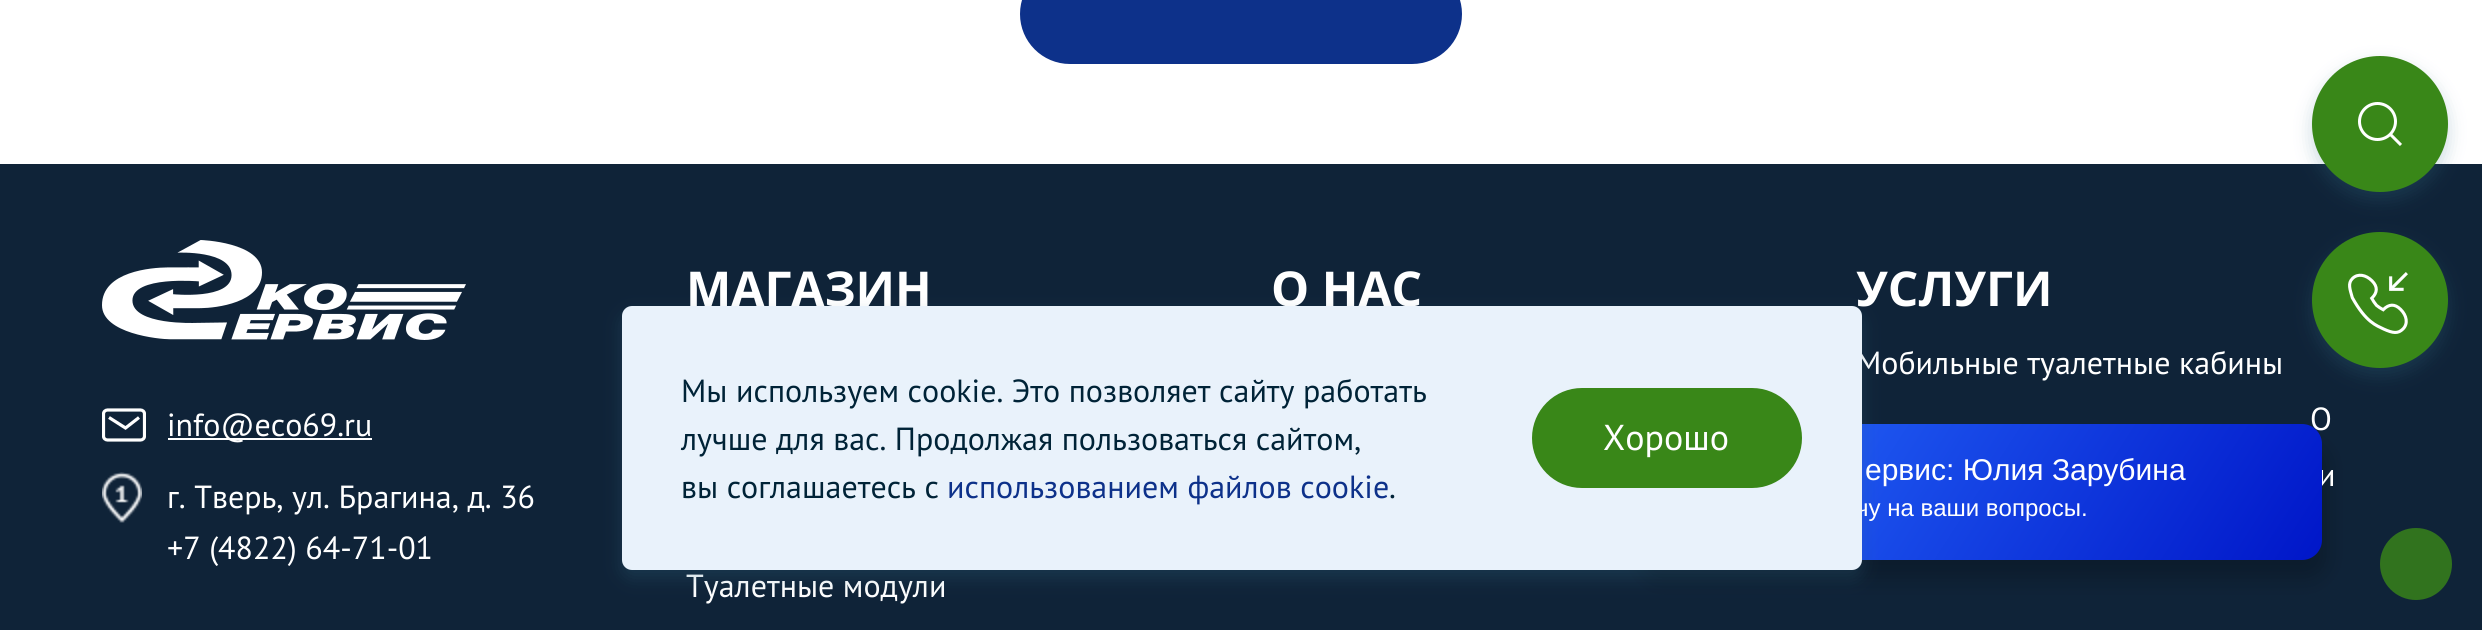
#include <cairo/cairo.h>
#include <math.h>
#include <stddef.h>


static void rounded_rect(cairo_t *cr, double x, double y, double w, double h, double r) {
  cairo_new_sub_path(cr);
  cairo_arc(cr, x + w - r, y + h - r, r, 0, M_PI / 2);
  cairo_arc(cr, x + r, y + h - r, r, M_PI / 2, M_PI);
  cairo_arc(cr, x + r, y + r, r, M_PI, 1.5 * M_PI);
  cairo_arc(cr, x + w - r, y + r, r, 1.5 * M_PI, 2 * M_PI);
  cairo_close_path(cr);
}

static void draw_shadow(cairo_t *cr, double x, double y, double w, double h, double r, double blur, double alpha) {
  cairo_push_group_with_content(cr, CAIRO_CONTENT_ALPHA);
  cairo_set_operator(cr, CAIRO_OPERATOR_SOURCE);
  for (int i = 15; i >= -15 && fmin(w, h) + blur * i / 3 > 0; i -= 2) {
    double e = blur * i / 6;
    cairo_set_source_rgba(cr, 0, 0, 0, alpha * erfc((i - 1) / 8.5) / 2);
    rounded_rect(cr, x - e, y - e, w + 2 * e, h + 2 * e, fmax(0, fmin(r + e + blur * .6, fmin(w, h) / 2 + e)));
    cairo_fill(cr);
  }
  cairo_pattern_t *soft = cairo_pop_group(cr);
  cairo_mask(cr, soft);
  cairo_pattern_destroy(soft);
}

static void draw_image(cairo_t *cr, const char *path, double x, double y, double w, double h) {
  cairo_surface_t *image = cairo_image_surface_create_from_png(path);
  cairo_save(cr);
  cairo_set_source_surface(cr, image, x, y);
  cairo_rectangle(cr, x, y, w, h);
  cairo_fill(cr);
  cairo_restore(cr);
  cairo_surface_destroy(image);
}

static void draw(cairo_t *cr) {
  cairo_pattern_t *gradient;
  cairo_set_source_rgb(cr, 1, 1, 1);
  cairo_paint(cr);
  cairo_set_source_rgb(cr, 13 / 255.0, 49 / 255.0, 138 / 255.0);
  rounded_rect(cr, 1021, -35, 440, 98, 49);
  cairo_fill_preserve(cr);
  cairo_stroke(cr);
  cairo_set_source_rgb(cr, 15 / 255.0, 35 / 255.0, 56 / 255.0);
  cairo_rectangle(cr, 0, 164, 2482, 466);
  cairo_fill(cr);
  cairo_set_source_rgb(cr, 53 / 255.0, 112 / 255.0, 139 / 255.0);
  draw_shadow(cr, 2312, 64, 136, 136, 68, 9, 0.25);
  cairo_set_source_rgb(cr, 57 / 255.0, 135 / 255.0, 24 / 255.0);
  cairo_arc(cr, 2380, 124, 68, 0, 2 * M_PI);
  cairo_fill(cr);
  cairo_arc(cr, 2377.5, 121.5, 18, 0, 2 * M_PI);
  cairo_set_source_rgb(cr, 1, 1, 1);
  cairo_set_line_width(cr, 3);
  cairo_stroke(cr);
  cairo_new_path(cr);
  cairo_move_to(cr, 2390, 134);
  cairo_line_to(cr, 2401, 145);
  cairo_stroke(cr);
  cairo_set_source_rgb(cr, 53 / 255.0, 112 / 255.0, 139 / 255.0);
  draw_shadow(cr, 2312, 240, 136, 136, 68, 9, 0.25);
  cairo_set_source_rgb(cr, 57 / 255.0, 135 / 255.0, 24 / 255.0);
  cairo_arc(cr, 2380, 300, 68, 0, 2 * M_PI);
  cairo_fill(cr);
  draw_image(cr, "images/1.png", 2348, 272, 60, 62);
  draw_image(cr, "images/2.png", 102, 240, 364, 100);
  cairo_save(cr);
  cairo_rectangle(cr, 102, 408, 44, 34);
  cairo_clip(cr);
  cairo_new_path(cr);
  cairo_move_to(cr, 107.5, 410);
  cairo_line_to(cr, 140.5, 410);
  cairo_curve_to(cr, 142.5, 410, 144.5, 411.5, 144.5, 414);
  cairo_line_to(cr, 144.5, 436);
  cairo_curve_to(cr, 144.5, 438.5, 142.5, 440, 140.5, 440);
  cairo_line_to(cr, 107.5, 440);
  cairo_curve_to(cr, 105.5, 440, 103.5, 438.5, 103.5, 436);
  cairo_line_to(cr, 103.5, 414);
  cairo_curve_to(cr, 103.5, 411.5, 105.5, 410, 107.5, 410);
  cairo_close_path(cr);
  cairo_set_source_rgb(cr, 1, 1, 1);
  cairo_set_line_width(cr, 3.2);
  cairo_stroke(cr);
  cairo_restore(cr);
  cairo_new_path(cr);
  cairo_move_to(cr, 109, 417.5);
  cairo_line_to(cr, 125.5, 428);
  cairo_line_to(cr, 139, 417.5);
  cairo_set_source_rgb(cr, 1, 1, 1);
  cairo_set_line_width(cr, 3.2);
  cairo_stroke(cr);
  cairo_rectangle(cr, 168, 438, 204, 2);
  cairo_fill(cr);
  draw_image(cr, "images/3.png", 102, 472, 40, 51);
  cairo_set_source_rgb(cr, 0, 0, 0);
  draw_shadow(cr, 1640, 444, 688, 136, 20, 10, 0.2);
  cairo_set_source_rgb(cr, 49 / 255.0, 115 / 255.0, 30 / 255.0);
  cairo_arc(cr, 2416, 564, 36, 0, 2 * M_PI);
  cairo_fill(cr);
  cairo_select_font_face(cr, "PT Sans", CAIRO_FONT_SLANT_NORMAL, CAIRO_FONT_WEIGHT_NORMAL);
  cairo_set_font_size(cr, 32);
  cairo_set_source_rgb(cr, 1, 1, 1);
  cairo_move_to(cr, 167, 436);
  cairo_show_text(cr, "info@eco69.ru");
  cairo_move_to(cr, 167, 508);
  cairo_show_text(cr, "г. Тверь, ул. Брагина, д. 36");
  cairo_move_to(cr, 167, 559);
  cairo_show_text(cr, "+7 (4822) 64-71-01");
  cairo_select_font_face(cr, "Open Sans", CAIRO_FONT_SLANT_NORMAL, CAIRO_FONT_WEIGHT_BOLD);
  cairo_set_font_size(cr, 48);
  cairo_move_to(cr, 686, 306);
  cairo_show_text(cr, "МАГАЗИН");
  cairo_select_font_face(cr, "PT Sans", CAIRO_FONT_SLANT_NORMAL, CAIRO_FONT_WEIGHT_NORMAL);
  cairo_set_font_size(cr, 32);
  cairo_move_to(cr, 686, 597);
  cairo_show_text(cr, "Туалетные модули");
  cairo_select_font_face(cr, "Open Sans", CAIRO_FONT_SLANT_NORMAL, CAIRO_FONT_WEIGHT_BOLD);
  cairo_set_font_size(cr, 48);
  cairo_move_to(cr, 1271, 306);
  cairo_show_text(cr, "О НАС");
  cairo_move_to(cr, 1856, 306);
  cairo_show_text(cr, "УСЛУГИ");
  cairo_select_font_face(cr, "PT Sans", CAIRO_FONT_SLANT_NORMAL, CAIRO_FONT_WEIGHT_NORMAL);
  cairo_set_font_size(cr, 32);
  cairo_move_to(cr, 1856, 374);
  cairo_show_text(cr, "Мобильные туалетные кабины");
  cairo_move_to(cr, 2310, 430);
  cairo_show_text(cr, "О");
  cairo_move_to(cr, 2318, 486);
  cairo_show_text(cr, "и");
  gradient = cairo_pattern_create_linear(2251, 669, 1705, 315);
  cairo_pattern_add_color_stop_rgba(gradient, 0, 0, 22 / 255.0, 200 / 255.0, 1);
  cairo_pattern_add_color_stop_rgba(gradient, 1, 41 / 255.0, 111 / 255.0, 1, 1);
  cairo_set_source(cr, gradient);
  cairo_pattern_destroy(gradient);
  rounded_rect(cr, 1634, 424, 688, 136, 20);
  cairo_fill(cr);
  cairo_set_source_rgb(cr, 53 / 255.0, 112 / 255.0, 139 / 255.0);
  draw_shadow(cr, 622, 314, 1240, 264, 10, 9, 0.25);
  cairo_select_font_face(cr, "Liberation Sans", CAIRO_FONT_SLANT_NORMAL, CAIRO_FONT_WEIGHT_NORMAL);
  cairo_set_font_size(cr, 30);
  cairo_set_source_rgb(cr, 1, 1, 1);
  cairo_move_to(cr, 1865, 480);
  cairo_show_text(cr, "ервис: Юлия Зарубина");
  cairo_set_font_size(cr, 24);
  cairo_move_to(cr, 1856, 516);
  cairo_show_text(cr, "чу на ваши вопросы.");
  cairo_set_source_rgb(cr, 233 / 255.0, 242 / 255.0, 251 / 255.0);
  rounded_rect(cr, 622, 306, 1240, 264, 10);
  cairo_fill(cr);
  cairo_set_source_rgb(cr, 57 / 255.0, 135 / 255.0, 24 / 255.0);
  rounded_rect(cr, 1533, 389, 268, 98, 49);
  cairo_fill_preserve(cr);
  cairo_set_line_width(cr, 2);
  cairo_stroke(cr);
  cairo_select_font_face(cr, "PT Sans", CAIRO_FONT_SLANT_NORMAL, CAIRO_FONT_WEIGHT_NORMAL);
  cairo_set_font_size(cr, 36);
  cairo_set_source_rgb(cr, 1, 1, 1);
  cairo_move_to(cr, 1603, 450);
  cairo_show_text(cr, "Хорошо");
  cairo_set_font_size(cr, 32);
  cairo_set_source_rgb(cr, 0, 35 / 255.0, 55 / 255.0);
  cairo_move_to(cr, 1389, 498);
  cairo_show_text(cr, ".");
  cairo_set_source_rgb(cr, 13 / 255.0, 49 / 255.0, 138 / 255.0);
  cairo_move_to(cr, 947, 498);
  cairo_show_text(cr, "использованием файлов cookie");
  cairo_set_source_rgb(cr, 0, 35 / 255.0, 55 / 255.0);
  cairo_move_to(cr, 681, 498);
  cairo_show_text(cr, "вы соглашаетесь с");
  cairo_move_to(cr, 681, 450);
  cairo_show_text(cr, "лучше для вас. Продолжая пользоваться сайтом,");
  cairo_move_to(cr, 681, 402);
  cairo_show_text(cr, "Мы используем cookie. Это позволяет сайту работать");
}

int main(void) {
  cairo_surface_t *surface = cairo_image_surface_create(CAIRO_FORMAT_RGB24, 2482, 630);
  cairo_t *cr = cairo_create(surface);
  cairo_font_options_t *options = cairo_font_options_create();
  cairo_font_options_set_hint_metrics(options, CAIRO_HINT_METRICS_OFF);
  cairo_font_options_set_hint_style(options, CAIRO_HINT_STYLE_NONE);
  cairo_set_font_options(cr, options);
  cairo_set_miter_limit(cr, 4);
  draw(cr);
  cairo_surface_write_to_png(surface, "out.png");
  cairo_font_options_destroy(options);
  cairo_destroy(cr);
  cairo_surface_destroy(surface);
  return 0;
}
